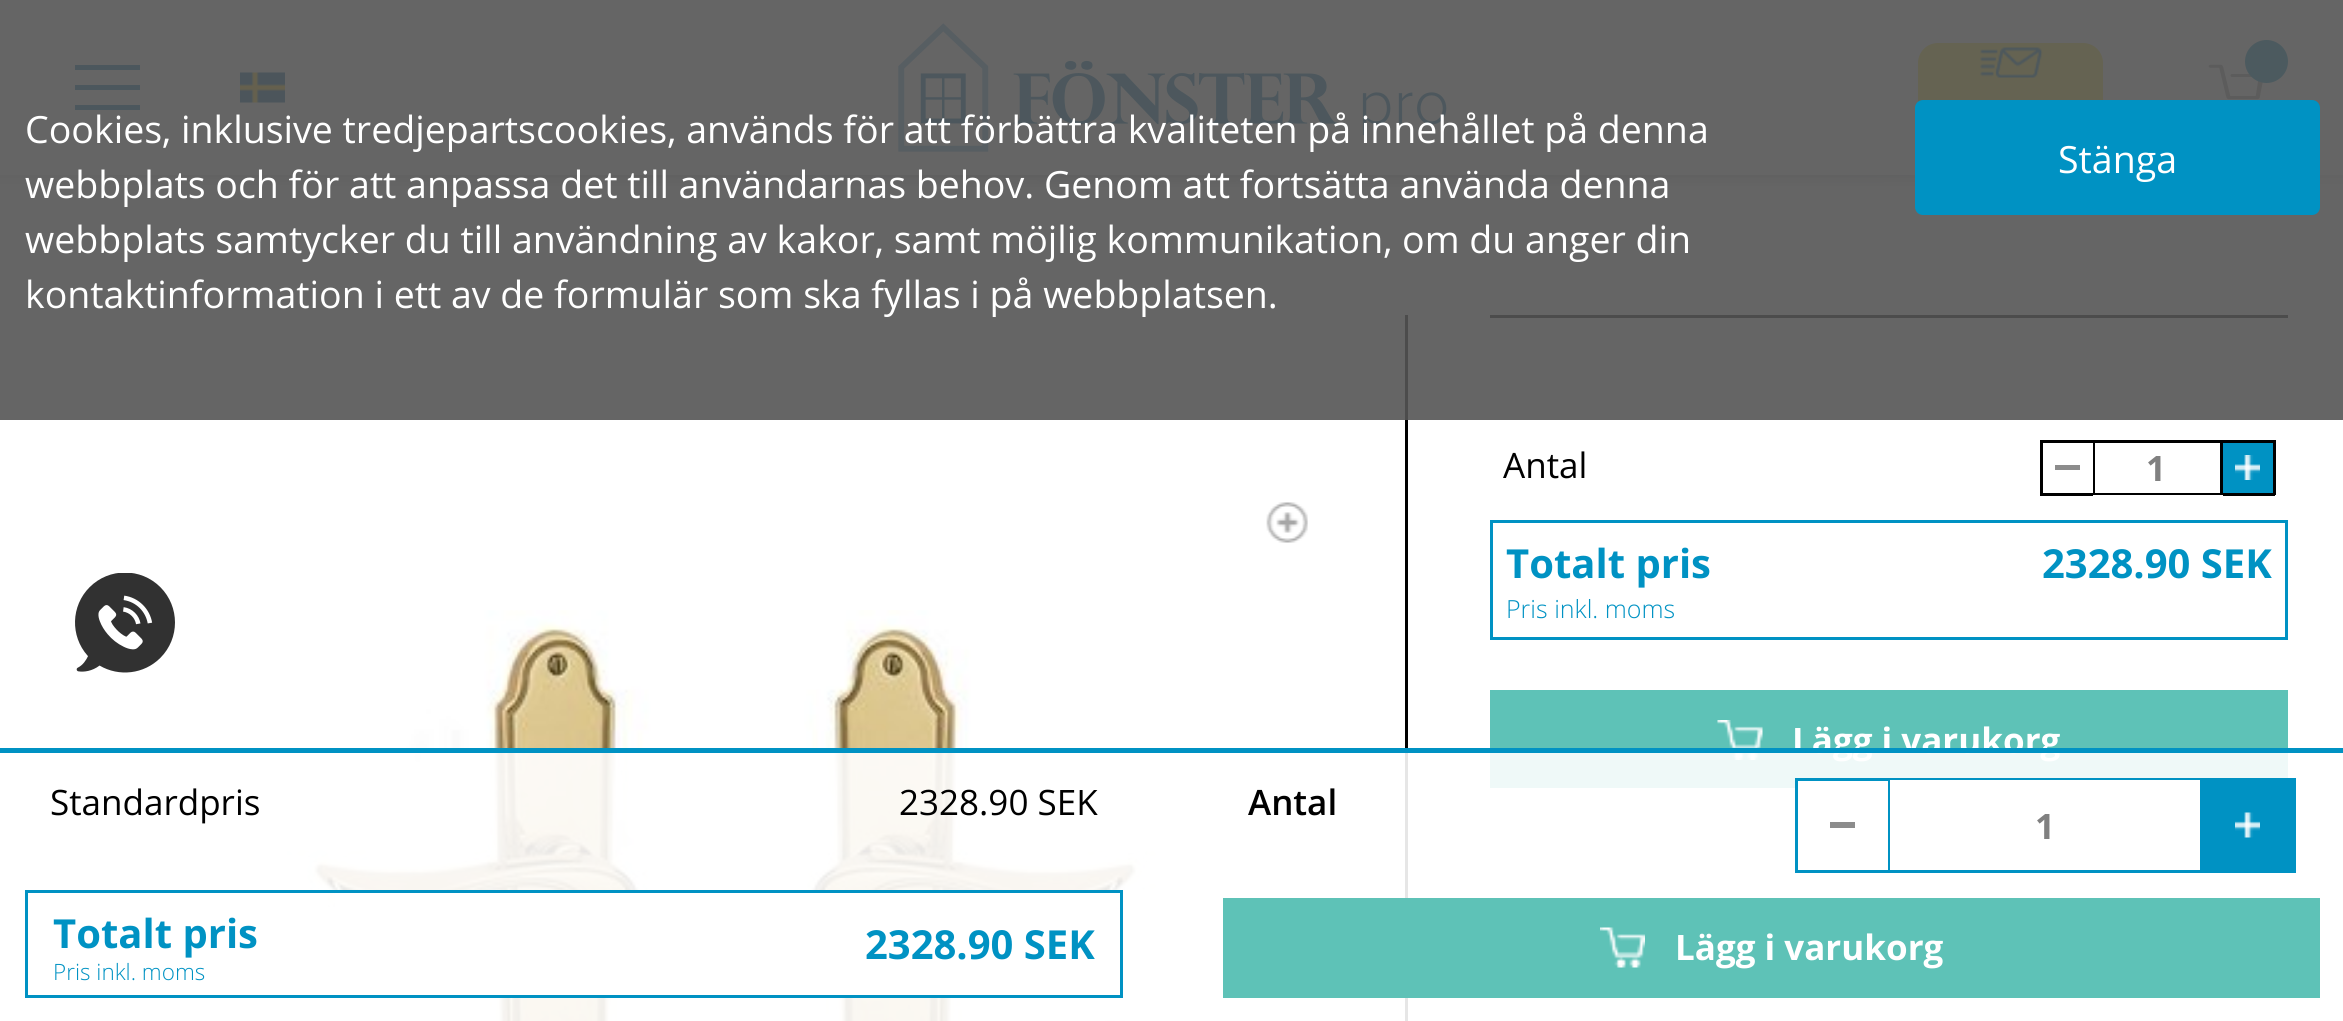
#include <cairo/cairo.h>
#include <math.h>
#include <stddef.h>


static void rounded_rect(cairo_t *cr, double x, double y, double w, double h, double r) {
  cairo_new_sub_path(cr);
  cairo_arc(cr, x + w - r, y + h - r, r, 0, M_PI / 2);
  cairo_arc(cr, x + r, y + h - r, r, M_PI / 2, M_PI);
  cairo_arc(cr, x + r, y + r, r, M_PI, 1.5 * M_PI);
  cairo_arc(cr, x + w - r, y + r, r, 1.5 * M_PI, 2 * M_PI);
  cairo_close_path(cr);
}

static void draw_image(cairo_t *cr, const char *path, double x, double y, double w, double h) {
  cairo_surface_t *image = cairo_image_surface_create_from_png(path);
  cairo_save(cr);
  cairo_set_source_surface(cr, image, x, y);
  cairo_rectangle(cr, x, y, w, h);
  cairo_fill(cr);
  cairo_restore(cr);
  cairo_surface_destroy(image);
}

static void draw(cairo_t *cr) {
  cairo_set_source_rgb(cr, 1, 1, 1);
  cairo_paint(cr);
  cairo_set_source_rgb(cr, 0, 113 / 255.0, 170 / 255.0);
  cairo_rectangle(cr, 75, 65, 65, 5);
  cairo_fill(cr);
  cairo_rectangle(cr, 75, 85, 65, 5);
  cairo_fill(cr);
  cairo_rectangle(cr, 75, 105, 65, 5);
  cairo_fill(cr);
  draw_image(cr, "images/1.png", 240, 72, 45, 31);
  draw_image(cr, "images/2.png", 898, 23, 549, 129);
  cairo_set_source_rgb(cr, 1, 235 / 255.0, 59 / 255.0);
  rounded_rect(cr, 1918, 43, 185, 90, 20);
  cairo_fill(cr);
  draw_image(cr, "images/3.png", 1980, 47, 63, 31);
  draw_image(cr, "images/4.png", 2208, 64, 55, 36);
  cairo_set_source_rgb(cr, 0, 146 / 255.0, 195 / 255.0);
  cairo_arc(cr, 2266.5, 61.5, 21.5, 0, 2 * M_PI);
  cairo_fill(cr);
  draw_image(cr, "images/5.png", 0, 175, 2343, 12);
  cairo_set_source_rgb(cr, 0, 0, 0);
  cairo_rectangle(cr, 1405, 315, 3, 706);
  cairo_fill(cr);
  cairo_rectangle(cr, 1490, 315, 798, 3);
  cairo_fill(cr);
  cairo_set_source_rgba(cr, 85 / 255.0, 85 / 255.0, 85 / 255.0, 0.9);
  cairo_rectangle(cr, 0, 0, 2343, 420);
  cairo_fill(cr);
  cairo_set_source_rgb(cr, 0, 146 / 255.0, 195 / 255.0);
  rounded_rect(cr, 1915, 100, 405, 115, 8);
  cairo_fill(cr);
  draw_image(cr, "images/6.png", 1266, 502, 42, 41);
  draw_image(cr, "images/7.png", 287, 610, 870, 411);
  draw_image(cr, "images/8.png", 1105, 1020, 20, 1);
  cairo_set_source_rgb(cr, 140 / 255.0, 140 / 255.0, 140 / 255.0);
  cairo_rectangle(cr, 2055, 465, 25, 5);
  cairo_fill(cr);
  cairo_set_source_rgb(cr, 0, 0, 0);
  cairo_rectangle(cr, 2040, 440, 53, 3);
  cairo_fill(cr);
  cairo_rectangle(cr, 2040, 493, 53, 3);
  cairo_fill(cr);
  cairo_rectangle(cr, 2040, 440, 3, 55);
  cairo_fill(cr);
  cairo_rectangle(cr, 2094.5, 441.5, 127, 52);
  cairo_set_line_width(cr, 3);
  cairo_stroke(cr);
  cairo_set_source_rgb(cr, 1, 1, 1);
  cairo_rectangle(cr, 2095, 443, 125, 50);
  cairo_fill(cr);
  cairo_set_source_rgb(cr, 0, 146 / 255.0, 195 / 255.0);
  cairo_rectangle(cr, 2223, 443, 50, 50);
  cairo_fill(cr);
  draw_image(cr, "images/9.png", 2235, 455, 25, 25);
  cairo_set_source_rgb(cr, 0, 0, 0);
  cairo_rectangle(cr, 2223, 440, 52, 3);
  cairo_fill(cr);
  cairo_rectangle(cr, 2273, 440, 3, 55);
  cairo_fill(cr);
  cairo_rectangle(cr, 2223, 493, 52, 3);
  cairo_fill(cr);
  cairo_rectangle(cr, 1491.5, 521.5, 795, 117);
  cairo_set_source_rgb(cr, 0, 146 / 255.0, 195 / 255.0);
  cairo_stroke(cr);
  cairo_set_source_rgb(cr, 94 / 255.0, 194 / 255.0, 183 / 255.0);
  cairo_rectangle(cr, 1490, 690, 798, 98);
  cairo_fill(cr);
  draw_image(cr, "images/10.png", 1717, 720, 46, 40);
  draw_image(cr, "images/13.png", 75, 573, 100, 100);
  cairo_select_font_face(cr, "Open Sans", CAIRO_FONT_SLANT_NORMAL, CAIRO_FONT_WEIGHT_NORMAL);
  cairo_set_font_size(cr, 37.5);
  cairo_set_source_rgb(cr, 1, 1, 1);
  cairo_move_to(cr, 25, 143);
  cairo_show_text(cr, "Cookies, inklusive tredjepartscookies, används för att förbättra kvaliteten på innehållet på denna");
  cairo_move_to(cr, 25, 198);
  cairo_show_text(cr, "webbplats och för att anpassa det till användarnas behov. Genom att fortsätta använda denna");
  cairo_move_to(cr, 25, 253);
  cairo_show_text(cr, "webbplats samtycker du till användning av kakor, samt möjlig kommunikation, om du anger din");
  cairo_move_to(cr, 25, 308);
  cairo_show_text(cr, "kontaktinformation i ett av de formulär som ska fyllas i på webbplatsen.");
  cairo_move_to(cr, 2058, 173);
  cairo_show_text(cr, "Stänga");
  cairo_set_font_size(cr, 35);
  cairo_set_source_rgb(cr, 0, 0, 0);
  cairo_move_to(cr, 1503, 478);
  cairo_show_text(cr, "Antal");
  cairo_select_font_face(cr, "Open Sans", CAIRO_FONT_SLANT_NORMAL, CAIRO_FONT_WEIGHT_BOLD);
  cairo_set_source_rgb(cr, 128 / 255.0, 128 / 255.0, 128 / 255.0);
  cairo_move_to(cr, 2146, 481);
  cairo_show_text(cr, "1");
  cairo_set_font_size(cr, 40);
  cairo_set_source_rgb(cr, 0, 146 / 255.0, 195 / 255.0);
  cairo_move_to(cr, 1506, 578);
  cairo_show_text(cr, "Totalt pris");
  cairo_move_to(cr, 2042, 578);
  cairo_show_text(cr, "2328.90 SEK");
  cairo_select_font_face(cr, "Open Sans Light", CAIRO_FONT_SLANT_NORMAL, CAIRO_FONT_WEIGHT_NORMAL);
  cairo_set_font_size(cr, 25);
  cairo_move_to(cr, 1506, 618);
  cairo_show_text(cr, "Pris inkl. moms");
  cairo_select_font_face(cr, "Open Sans", CAIRO_FONT_SLANT_NORMAL, CAIRO_FONT_WEIGHT_BOLD);
  cairo_set_font_size(cr, 35);
  cairo_set_source_rgb(cr, 1, 1, 1);
  cairo_move_to(cr, 1792, 753);
  cairo_show_text(cr, "Lägg i varukorg");
  cairo_set_source_rgb(cr, 0, 146 / 255.0, 195 / 255.0);
  cairo_rectangle(cr, 0, 748, 2343, 5);
  cairo_fill(cr);
  cairo_set_source_rgba(cr, 1, 1, 1, 0.9);
  cairo_rectangle(cr, 287, 753, 2001, 268);
  cairo_fill(cr);
  cairo_select_font_face(cr, "Open Sans", CAIRO_FONT_SLANT_NORMAL, CAIRO_FONT_WEIGHT_NORMAL);
  cairo_set_source_rgb(cr, 0, 0, 0);
  cairo_move_to(cr, 50, 815);
  cairo_show_text(cr, "Standardpris");
  cairo_move_to(cr, 899, 815);
  cairo_show_text(cr, "2328.90 SEK");
  cairo_set_source_rgb(cr, 1, 1, 1);
  cairo_rectangle(cr, 335, 893, 781, 102);
  cairo_fill(cr);
  cairo_rectangle(cr, 26.5, 891.5, 1095, 105);
  cairo_set_source_rgb(cr, 0, 146 / 255.0, 195 / 255.0);
  cairo_stroke(cr);
  cairo_select_font_face(cr, "Open Sans", CAIRO_FONT_SLANT_NORMAL, CAIRO_FONT_WEIGHT_BOLD);
  cairo_set_font_size(cr, 40);
  cairo_move_to(cr, 53, 948);
  cairo_show_text(cr, "Totalt pris");
  cairo_select_font_face(cr, "Open Sans Light", CAIRO_FONT_SLANT_NORMAL, CAIRO_FONT_WEIGHT_NORMAL);
  cairo_set_font_size(cr, 22.5);
  cairo_move_to(cr, 53, 980);
  cairo_show_text(cr, "Pris inkl. moms");
  cairo_select_font_face(cr, "Open Sans", CAIRO_FONT_SLANT_NORMAL, CAIRO_FONT_WEIGHT_BOLD);
  cairo_set_font_size(cr, 40);
  cairo_move_to(cr, 865, 959);
  cairo_show_text(cr, "2328.90 SEK");
  cairo_select_font_face(cr, "Open Sans SemiBold", CAIRO_FONT_SLANT_NORMAL, CAIRO_FONT_WEIGHT_NORMAL);
  cairo_set_font_size(cr, 35);
  cairo_set_source_rgb(cr, 0, 0, 0);
  cairo_move_to(cr, 1248, 815);
  cairo_show_text(cr, "Antal");
  cairo_set_source_rgb(cr, 1, 1, 1);
  cairo_rectangle(cr, 1798, 781, 90, 7);
  cairo_fill(cr);
  cairo_set_source_rgb(cr, 140 / 255.0, 140 / 255.0, 140 / 255.0);
  cairo_rectangle(cr, 1830, 822, 25, 6);
  cairo_fill(cr);
  cairo_set_source_rgb(cr, 0, 146 / 255.0, 195 / 255.0);
  cairo_rectangle(cr, 1795, 778, 93, 3);
  cairo_fill(cr);
  cairo_rectangle(cr, 1795, 870, 93, 3);
  cairo_fill(cr);
  cairo_rectangle(cr, 1795, 778, 3, 95);
  cairo_fill(cr);
  cairo_rectangle(cr, 1889.5, 779.5, 312, 92);
  cairo_stroke(cr);
  cairo_set_source_rgb(cr, 1, 1, 1);
  cairo_rectangle(cr, 1890, 780, 310, 90);
  cairo_fill(cr);
  cairo_select_font_face(cr, "Open Sans", CAIRO_FONT_SLANT_NORMAL, CAIRO_FONT_WEIGHT_BOLD);
  cairo_set_source_rgb(cr, 128 / 255.0, 128 / 255.0, 128 / 255.0);
  cairo_move_to(cr, 2035, 839);
  cairo_show_text(cr, "1");
  cairo_set_source_rgb(cr, 0, 146 / 255.0, 195 / 255.0);
  cairo_rectangle(cr, 2203, 781, 90, 89);
  cairo_fill(cr);
  draw_image(cr, "images/11.png", 2235, 812, 25, 26);
  cairo_rectangle(cr, 2203, 778, 92, 3);
  cairo_fill(cr);
  cairo_rectangle(cr, 2293, 778, 3, 95);
  cairo_fill(cr);
  cairo_rectangle(cr, 2203, 870, 92, 3);
  cairo_fill(cr);
  cairo_set_source_rgb(cr, 94 / 255.0, 194 / 255.0, 183 / 255.0);
  cairo_rectangle(cr, 1223, 898, 1097, 100);
  cairo_fill(cr);
  draw_image(cr, "images/12.png", 1600, 927, 45, 41);
  cairo_set_source_rgb(cr, 1, 1, 1);
  cairo_move_to(cr, 1675, 960);
  cairo_show_text(cr, "Lägg i varukorg");
}

int main(void) {
  cairo_surface_t *surface = cairo_image_surface_create(CAIRO_FORMAT_RGB24, 2343, 1021);
  cairo_t *cr = cairo_create(surface);
  cairo_font_options_t *options = cairo_font_options_create();
  cairo_font_options_set_hint_metrics(options, CAIRO_HINT_METRICS_OFF);
  cairo_font_options_set_hint_style(options, CAIRO_HINT_STYLE_NONE);
  cairo_set_font_options(cr, options);
  cairo_set_miter_limit(cr, 4);
  draw(cr);
  cairo_surface_write_to_png(surface, "out.png");
  cairo_font_options_destroy(options);
  cairo_destroy(cr);
  cairo_surface_destroy(surface);
  return 0;
}
